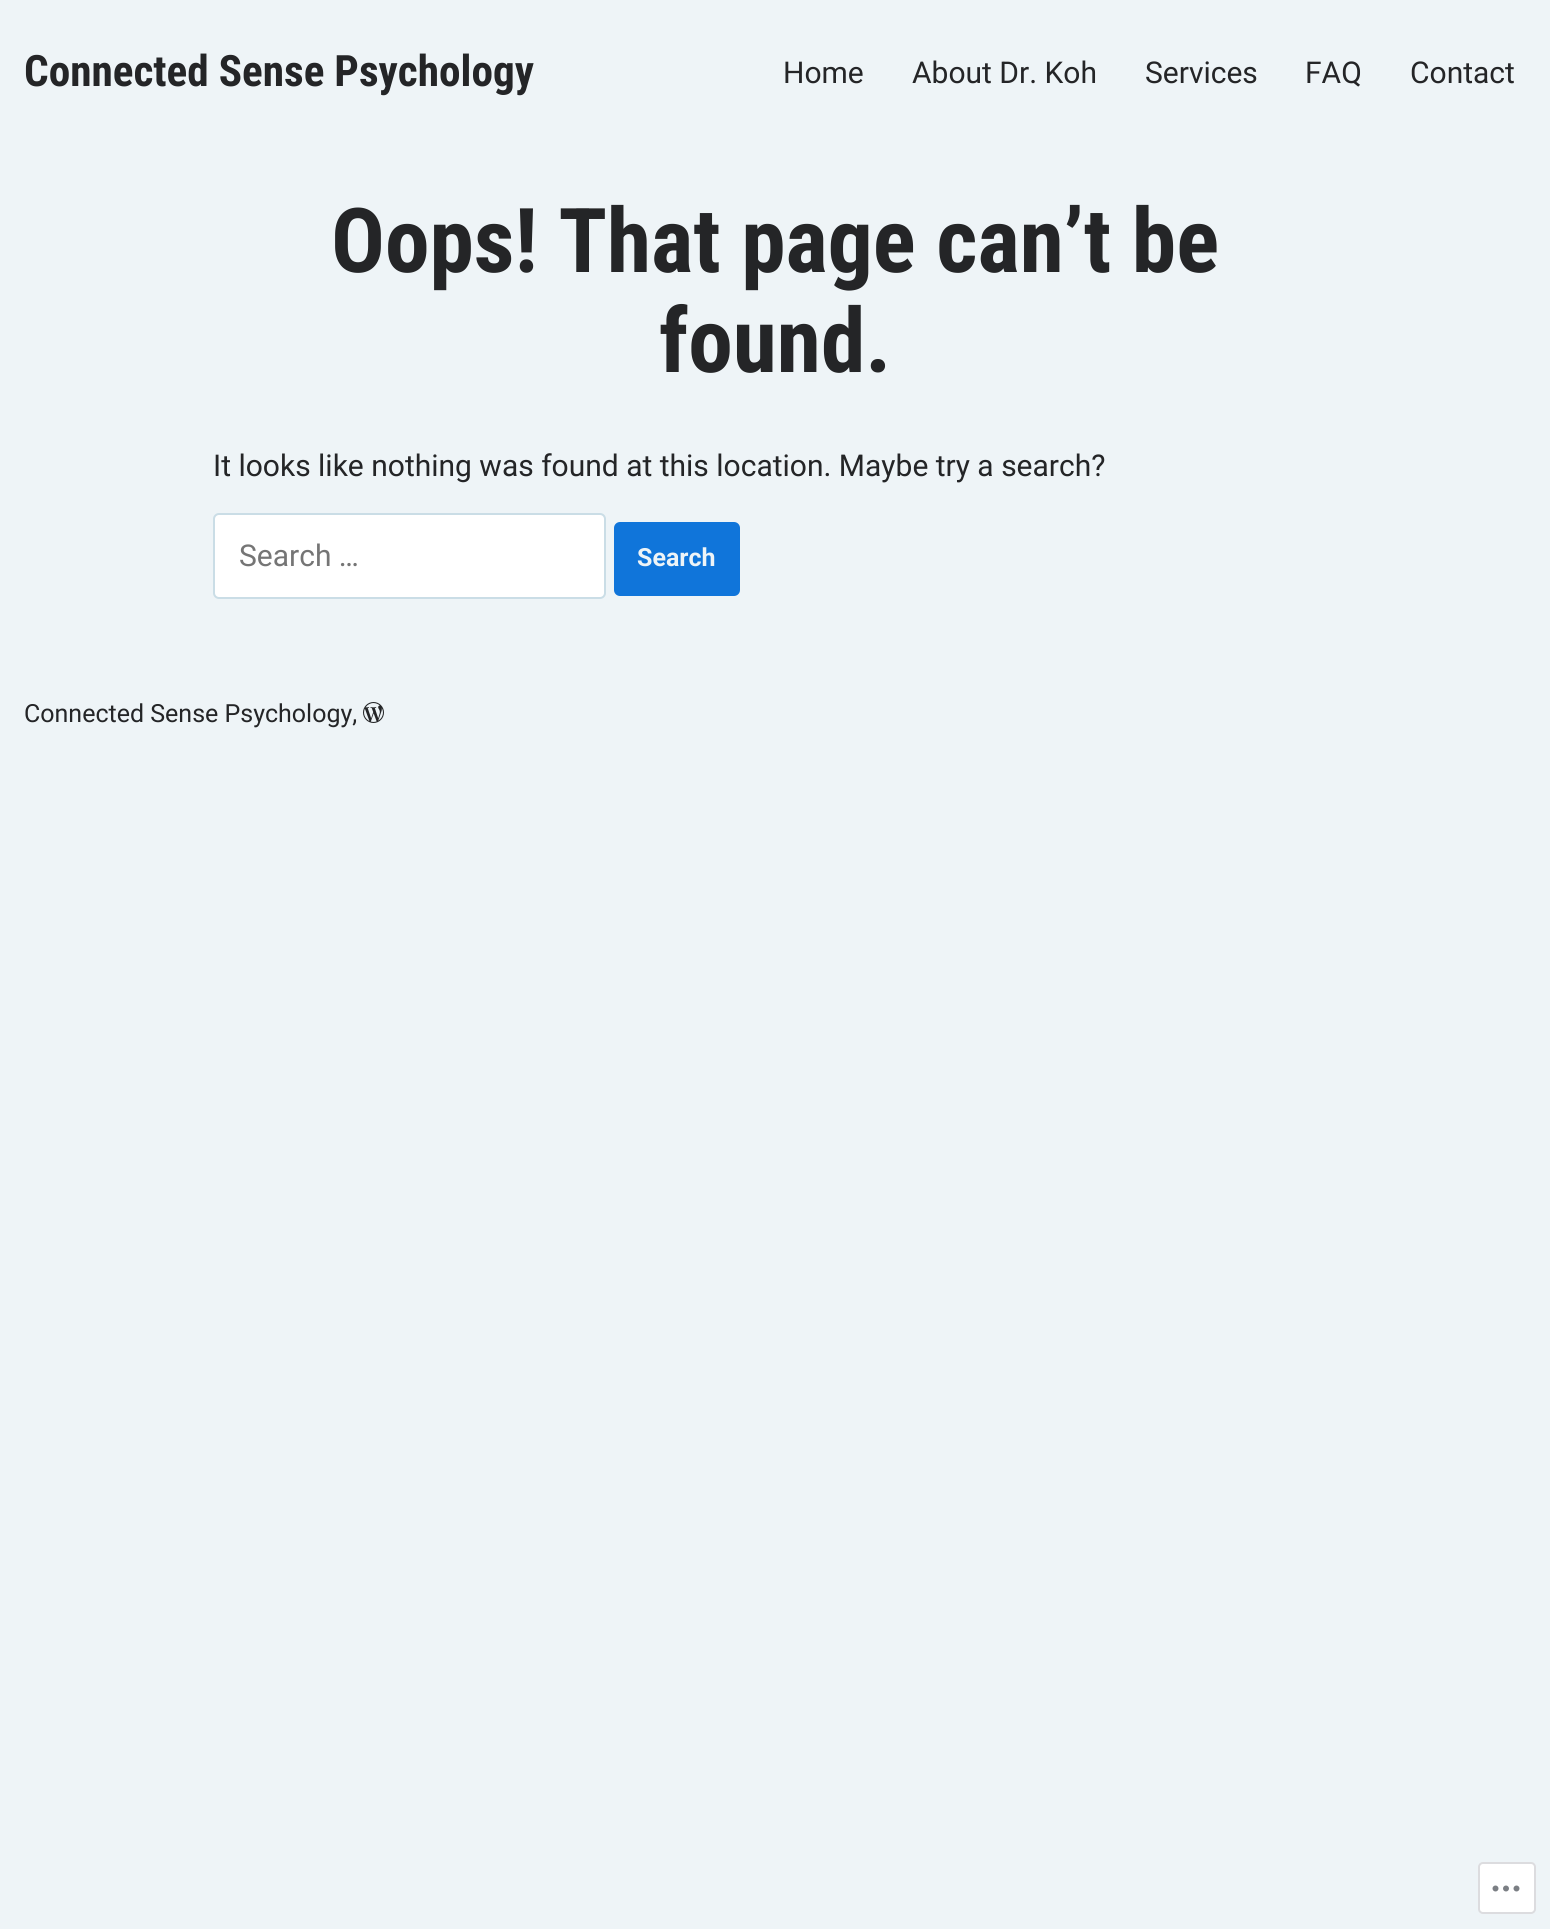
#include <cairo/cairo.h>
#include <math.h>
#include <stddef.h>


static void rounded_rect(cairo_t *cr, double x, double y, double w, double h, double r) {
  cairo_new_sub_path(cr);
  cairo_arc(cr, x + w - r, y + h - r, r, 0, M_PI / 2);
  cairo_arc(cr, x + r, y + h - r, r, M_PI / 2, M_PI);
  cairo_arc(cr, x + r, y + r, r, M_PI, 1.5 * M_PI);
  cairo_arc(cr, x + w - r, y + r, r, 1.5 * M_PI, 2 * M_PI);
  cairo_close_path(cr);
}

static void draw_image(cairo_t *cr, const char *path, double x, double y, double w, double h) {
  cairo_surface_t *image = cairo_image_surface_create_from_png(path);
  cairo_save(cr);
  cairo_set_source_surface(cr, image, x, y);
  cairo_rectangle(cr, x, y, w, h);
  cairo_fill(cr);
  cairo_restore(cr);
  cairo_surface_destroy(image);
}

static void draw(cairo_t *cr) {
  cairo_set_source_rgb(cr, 238 / 255.0, 244 / 255.0, 247 / 255.0);
  cairo_paint(cr);
  cairo_set_source_rgb(cr, 1, 1, 1);
  rounded_rect(cr, 214, 514, 391, 84, 5);
  cairo_fill_preserve(cr);
  cairo_set_source_rgb(cr, 202 / 255.0, 221 / 255.0, 230 / 255.0);
  cairo_stroke(cr);
  cairo_set_source_rgb(cr, 16 / 255.0, 117 / 255.0, 218 / 255.0);
  rounded_rect(cr, 614, 522, 126, 74, 6);
  cairo_fill(cr);
  draw_image(cr, "images/1.png", 363, 702, 21, 21);
  cairo_set_source_rgb(cr, 1, 1, 1);
  rounded_rect(cr, 1479, 1863, 56, 50, 4);
  cairo_fill_preserve(cr);
  cairo_set_source_rgb(cr, 220 / 255.0, 220 / 255.0, 223 / 255.0);
  cairo_stroke(cr);
  draw_image(cr, "images/2.png", 1492, 1885, 28, 7);
  cairo_select_font_face(cr, "Roboto Condensed", CAIRO_FONT_SLANT_NORMAL, CAIRO_FONT_WEIGHT_BOLD);
  cairo_set_font_size(cr, 43.25);
  cairo_set_source_rgb(cr, 36 / 255.0, 37 / 255.0, 39 / 255.0);
  cairo_move_to(cr, 24, 86);
  cairo_show_text(cr, "Connected Sense Psychology");
  cairo_select_font_face(cr, "Roboto", CAIRO_FONT_SLANT_NORMAL, CAIRO_FONT_WEIGHT_NORMAL);
  cairo_set_font_size(cr, 30);
  cairo_move_to(cr, 783, 83);
  cairo_show_text(cr, "Home");
  cairo_move_to(cr, 912, 83);
  cairo_show_text(cr, "About Dr. Koh");
  cairo_move_to(cr, 1145, 83);
  cairo_show_text(cr, "Services");
  cairo_move_to(cr, 1305, 83);
  cairo_show_text(cr, "FAQ");
  cairo_move_to(cr, 1410, 83);
  cairo_show_text(cr, "Contact");
  cairo_select_font_face(cr, "Roboto Condensed", CAIRO_FONT_SLANT_NORMAL, CAIRO_FONT_WEIGHT_BOLD);
  cairo_set_font_size(cr, 89.5);
  cairo_move_to(cr, 331, 272);
  cairo_show_text(cr, "Oops! That page can’t be");
  cairo_move_to(cr, 659, 372);
  cairo_show_text(cr, "found.");
  cairo_select_font_face(cr, "Roboto", CAIRO_FONT_SLANT_NORMAL, CAIRO_FONT_WEIGHT_NORMAL);
  cairo_set_font_size(cr, 30);
  cairo_move_to(cr, 213, 476);
  cairo_show_text(cr, "It looks like nothing was found at this location. Maybe try a search?");
  cairo_set_source_rgb(cr, 117 / 255.0, 117 / 255.0, 117 / 255.0);
  cairo_move_to(cr, 239, 566);
  cairo_show_text(cr, "Search …");
  cairo_select_font_face(cr, "Roboto", CAIRO_FONT_SLANT_NORMAL, CAIRO_FONT_WEIGHT_BOLD);
  cairo_set_font_size(cr, 25);
  cairo_set_source_rgb(cr, 238 / 255.0, 244 / 255.0, 247 / 255.0);
  cairo_move_to(cr, 637, 566);
  cairo_show_text(cr, "Search");
  cairo_select_font_face(cr, "Roboto", CAIRO_FONT_SLANT_NORMAL, CAIRO_FONT_WEIGHT_NORMAL);
  cairo_set_source_rgb(cr, 36 / 255.0, 37 / 255.0, 39 / 255.0);
  cairo_move_to(cr, 24, 722);
  cairo_show_text(cr, "Connected Sense Psychology,");
}

int main(void) {
  cairo_surface_t *surface = cairo_image_surface_create(CAIRO_FORMAT_RGB24, 1550, 1929);
  cairo_t *cr = cairo_create(surface);
  cairo_font_options_t *options = cairo_font_options_create();
  cairo_font_options_set_hint_metrics(options, CAIRO_HINT_METRICS_OFF);
  cairo_font_options_set_hint_style(options, CAIRO_HINT_STYLE_NONE);
  cairo_set_font_options(cr, options);
  cairo_set_miter_limit(cr, 4);
  draw(cr);
  cairo_surface_write_to_png(surface, "out.png");
  cairo_font_options_destroy(options);
  cairo_destroy(cr);
  cairo_surface_destroy(surface);
  return 0;
}
